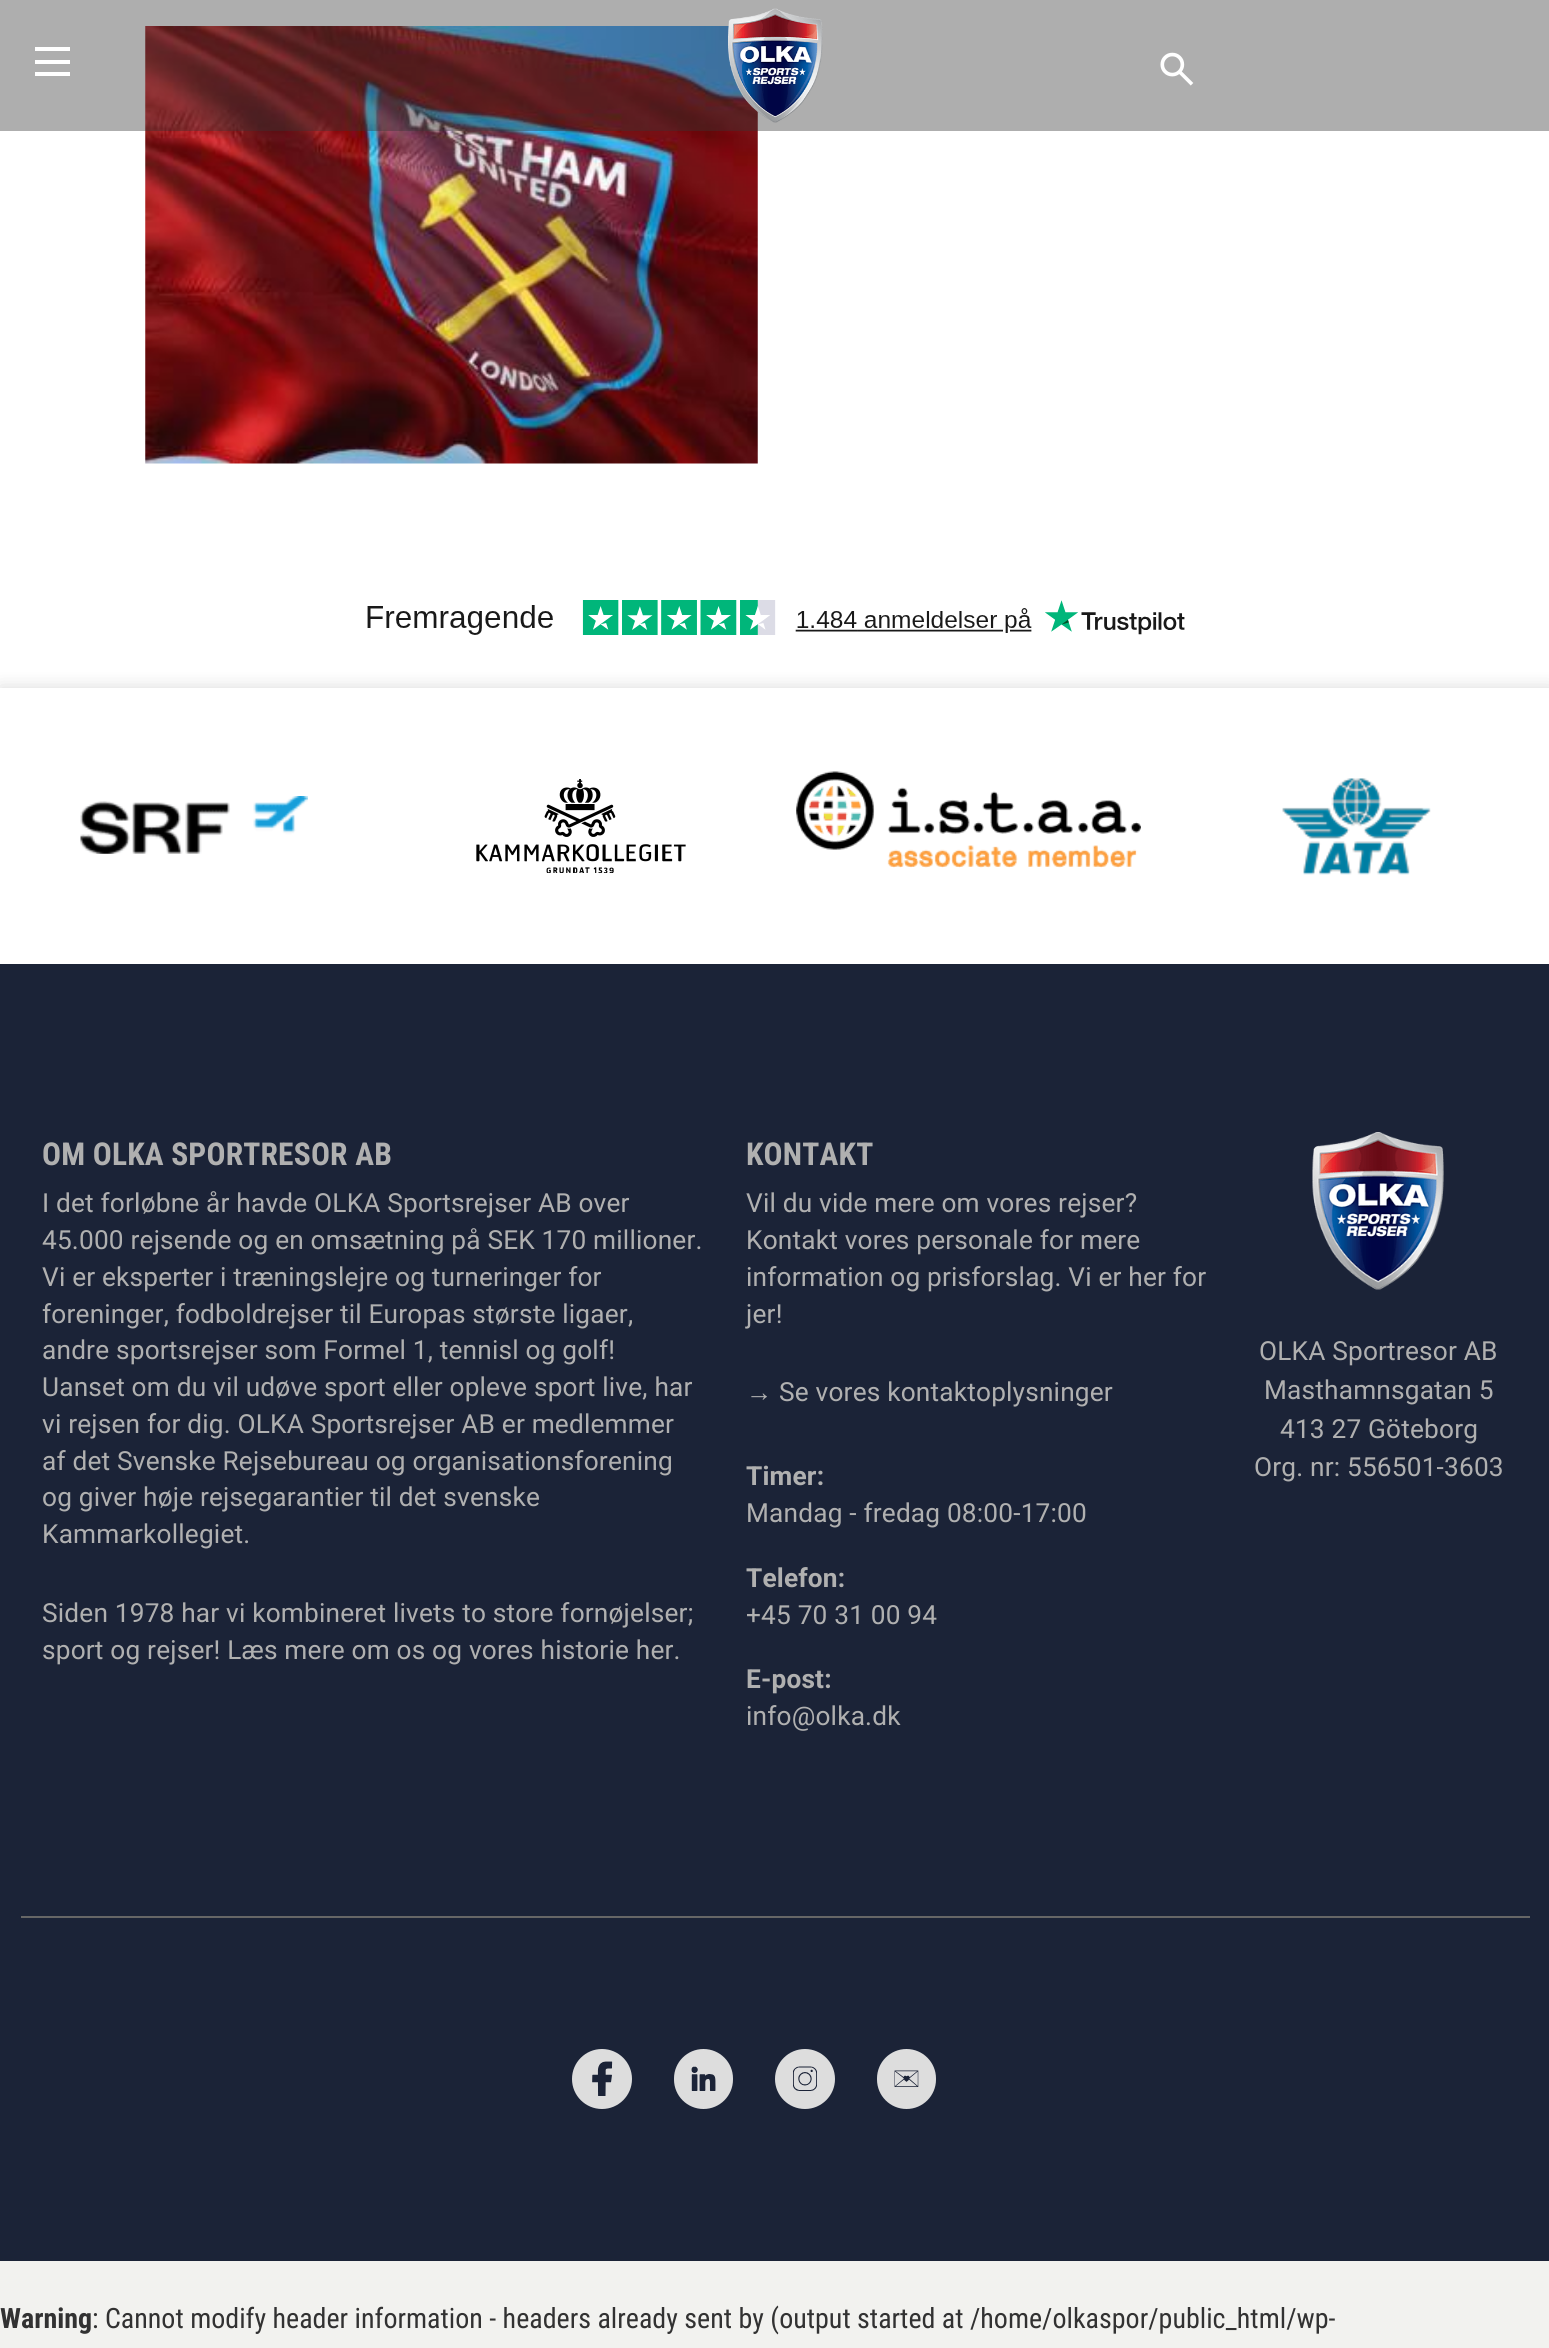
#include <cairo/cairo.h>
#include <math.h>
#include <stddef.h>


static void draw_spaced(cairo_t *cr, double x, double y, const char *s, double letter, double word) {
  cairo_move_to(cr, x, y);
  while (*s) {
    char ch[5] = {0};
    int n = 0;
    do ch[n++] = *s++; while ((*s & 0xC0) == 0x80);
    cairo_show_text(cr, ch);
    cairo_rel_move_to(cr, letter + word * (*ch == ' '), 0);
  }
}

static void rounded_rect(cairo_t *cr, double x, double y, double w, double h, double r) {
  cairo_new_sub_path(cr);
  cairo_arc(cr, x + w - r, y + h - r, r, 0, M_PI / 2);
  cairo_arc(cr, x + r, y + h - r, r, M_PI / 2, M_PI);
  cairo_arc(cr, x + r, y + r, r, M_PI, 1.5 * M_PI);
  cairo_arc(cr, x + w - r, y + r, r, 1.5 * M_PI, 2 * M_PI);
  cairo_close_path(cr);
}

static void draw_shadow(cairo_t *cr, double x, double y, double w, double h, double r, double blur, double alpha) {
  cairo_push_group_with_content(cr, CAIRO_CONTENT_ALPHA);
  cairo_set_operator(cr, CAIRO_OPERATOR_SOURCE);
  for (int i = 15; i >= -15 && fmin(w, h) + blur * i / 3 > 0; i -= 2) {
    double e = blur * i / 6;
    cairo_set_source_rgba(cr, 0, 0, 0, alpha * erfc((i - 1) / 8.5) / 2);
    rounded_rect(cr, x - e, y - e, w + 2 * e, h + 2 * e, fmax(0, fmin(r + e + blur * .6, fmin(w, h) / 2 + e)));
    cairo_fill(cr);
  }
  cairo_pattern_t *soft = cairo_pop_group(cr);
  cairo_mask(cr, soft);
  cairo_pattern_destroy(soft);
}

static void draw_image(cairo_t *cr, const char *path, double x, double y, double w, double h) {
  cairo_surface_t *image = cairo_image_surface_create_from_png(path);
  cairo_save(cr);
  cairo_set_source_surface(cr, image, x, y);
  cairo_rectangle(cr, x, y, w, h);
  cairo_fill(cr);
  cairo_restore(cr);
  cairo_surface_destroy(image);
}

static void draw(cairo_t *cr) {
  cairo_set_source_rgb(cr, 242 / 255.0, 242 / 255.0, 239 / 255.0);
  cairo_paint(cr);
  cairo_set_source_rgb(cr, 1, 1, 1);
  cairo_rectangle(cr, 0, 0, 1549, 688);
  cairo_fill(cr);
  draw_image(cr, "images/1.png", 145, 26, 613, 438);
  cairo_set_source_rgba(cr, 53 / 255.0, 53 / 255.0, 53 / 255.0, 0.4);
  cairo_rectangle(cr, 0, 0, 1549, 131);
  cairo_fill(cr);
  cairo_set_source_rgb(cr, 1, 1, 1);
  cairo_rectangle(cr, 35, 47, 35, 4);
  cairo_fill(cr);
  cairo_rectangle(cr, 35, 60, 35, 4);
  cairo_fill(cr);
  cairo_rectangle(cr, 35, 72, 35, 4);
  cairo_fill(cr);
  draw_image(cr, "images/2.png", 728, 8, 95, 115);
  draw_image(cr, "images/3.png", 1160, 52, 34, 34);
  draw_image(cr, "images/4.png", 367, 600, 818, 35);
  cairo_set_source_rgb(cr, 0, 0, 0);
  draw_shadow(cr, 0, 688, 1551, 276, 0, 9, 0.15);
  cairo_set_source_rgb(cr, 1, 1, 1);
  cairo_rectangle(cr, 0, 688, 1549, 276);
  cairo_fill(cr);
  draw_image(cr, "images/5.png", 80, 796, 228, 58);
  draw_image(cr, "images/6.png", 476, 779, 210, 94);
  draw_image(cr, "images/7.png", 796, 771, 345, 97);
  draw_image(cr, "images/8.png", 1282, 778, 149, 97);
  cairo_set_source_rgb(cr, 27 / 255.0, 35 / 255.0, 55 / 255.0);
  cairo_rectangle(cr, 0, 964, 1549, 1297);
  cairo_fill(cr);
  draw_image(cr, "images/9.png", 1312, 1132, 132, 158);
  cairo_set_source_rgb(cr, 102 / 255.0, 102 / 255.0, 102 / 255.0);
  cairo_rectangle(cr, 21, 1916, 1509, 2);
  cairo_fill(cr);
  cairo_set_source_rgb(cr, 221 / 255.0, 221 / 255.0, 221 / 255.0);
  cairo_arc(cr, 602, 2079, 30, 0, 2 * M_PI);
  cairo_fill(cr);
  draw_image(cr, "images/10.png", 592, 2061, 21, 35);
  rounded_rect(cr, 674, 2049, 59, 60, 29.5);
  cairo_fill(cr);
  draw_image(cr, "images/11.png", 691, 2066, 25, 25);
  cairo_arc(cr, 805, 2079, 30, 0, 2 * M_PI);
  cairo_fill(cr);
  draw_image(cr, "images/12.png", 793, 2066, 24, 25);
  rounded_rect(cr, 877, 2049, 59, 60, 29.5);
  cairo_fill(cr);
  draw_image(cr, "images/13.png", 894, 2070, 25, 17);
  cairo_select_font_face(cr, "Roboto Condensed", CAIRO_FONT_SLANT_NORMAL, CAIRO_FONT_WEIGHT_BOLD);
  cairo_set_font_size(cr, 31.5);
  cairo_set_source_rgb(cr, 176 / 255.0, 176 / 255.0, 176 / 255.0);
  draw_spaced(cr, 42, 1165, "OM OLKA SPORTRESOR AB", 0.18, 0);
  cairo_select_font_face(cr, "Roboto", CAIRO_FONT_SLANT_NORMAL, CAIRO_FONT_WEIGHT_NORMAL);
  cairo_set_font_size(cr, 26.25);
  draw_spaced(cr, 42, 1212, "I det forløbne år havde OLKA Sportsrejser AB over", 0.18, 0);
  draw_spaced(cr, 42, 1249, "45.000 rejsende og en omsætning på SEK 170 millioner.", 0.18, 0);
  draw_spaced(cr, 42, 1286, "Vi er eksperter i træningslejre og turneringer for", 0.18, 0);
  draw_spaced(cr, 42, 1323, "foreninger, fodboldrejser til Europas største ligaer,", 0.18, 0);
  draw_spaced(cr, 42, 1359, "andre sportsrejser som Formel 1, tennisl og golf!", 0.18, 0);
  draw_spaced(cr, 42, 1396, "Uanset om du vil udøve sport eller opleve sport live, har", 0.18, 0);
  draw_spaced(cr, 42, 1433, "vi rejsen for dig. OLKA Sportsrejser AB er medlemmer", 0.18, 0);
  draw_spaced(cr, 42, 1470, "af det Svenske Rejsebureau og organisationsforening", 0.18, 0);
  draw_spaced(cr, 42, 1506, "og giver høje rejsegarantier til det svenske", 0.18, 0);
  draw_spaced(cr, 42, 1543, "Kammarkollegiet.", 0.18, 0);
  draw_spaced(cr, 42, 1622, "Siden 1978 har vi kombineret livets to store fornøjelser;", 0.18, 0);
  draw_spaced(cr, 42, 1659, "sport og rejser! Læs mere om os og vores historie her.", 0.18, 0);
  cairo_select_font_face(cr, "Roboto Condensed", CAIRO_FONT_SLANT_NORMAL, CAIRO_FONT_WEIGHT_BOLD);
  cairo_set_font_size(cr, 31.5);
  draw_spaced(cr, 746, 1165, "KONTAKT", 0.18, 0);
  cairo_select_font_face(cr, "Roboto", CAIRO_FONT_SLANT_NORMAL, CAIRO_FONT_WEIGHT_NORMAL);
  cairo_set_font_size(cr, 26.25);
  draw_spaced(cr, 746, 1212, "Vil du vide mere om vores rejser?", 0.18, 0);
  draw_spaced(cr, 746, 1249, "Kontakt vores personale for mere", 0.18, 0);
  draw_spaced(cr, 746, 1286, "information og prisforslag. Vi er her for", 0.18, 0);
  draw_spaced(cr, 746, 1323, "jer!", 0.18, 0);
  cairo_select_font_face(cr, "Liberation Sans", CAIRO_FONT_SLANT_NORMAL, CAIRO_FONT_WEIGHT_BOLD);
  draw_spaced(cr, 746, 1401, "→", 0.18, 0);
  cairo_select_font_face(cr, "Roboto", CAIRO_FONT_SLANT_NORMAL, CAIRO_FONT_WEIGHT_NORMAL);
  draw_spaced(cr, 779, 1401, "Se vores kontaktoplysninger", 0.18, 0);
  cairo_select_font_face(cr, "Roboto", CAIRO_FONT_SLANT_NORMAL, CAIRO_FONT_WEIGHT_BOLD);
  draw_spaced(cr, 746, 1485, "Timer:", 0.18, 0);
  cairo_select_font_face(cr, "Roboto", CAIRO_FONT_SLANT_NORMAL, CAIRO_FONT_WEIGHT_NORMAL);
  draw_spaced(cr, 746, 1522, "Mandag - fredag 08:00-17:00", 0.18, 0);
  cairo_select_font_face(cr, "Roboto", CAIRO_FONT_SLANT_NORMAL, CAIRO_FONT_WEIGHT_BOLD);
  draw_spaced(cr, 746, 1587, "Telefon:", 0.18, 0);
  cairo_select_font_face(cr, "Roboto", CAIRO_FONT_SLANT_NORMAL, CAIRO_FONT_WEIGHT_NORMAL);
  draw_spaced(cr, 746, 1624, "+45 70 31 00 94", 0.18, 0);
  cairo_select_font_face(cr, "Roboto", CAIRO_FONT_SLANT_NORMAL, CAIRO_FONT_WEIGHT_BOLD);
  draw_spaced(cr, 746, 1688, "E-post:", 0.18, 0);
  cairo_select_font_face(cr, "Roboto", CAIRO_FONT_SLANT_NORMAL, CAIRO_FONT_WEIGHT_NORMAL);
  draw_spaced(cr, 746, 1725, "info@olka.dk", 0.18, 0);
  draw_spaced(cr, 1259, 1360, "OLKA Sportresor AB", 0.18, 0);
  draw_spaced(cr, 1264, 1399, "Masthamnsgatan 5", 0.18, 0);
  draw_spaced(cr, 1280, 1438, "413 27 Göteborg", 0.18, 0);
  draw_spaced(cr, 1254, 1476, "Org. nr: 556501-3603", 0.18, 0);
  cairo_select_font_face(cr, "Roboto Condensed", CAIRO_FONT_SLANT_NORMAL, CAIRO_FONT_WEIGHT_BOLD);
  cairo_set_font_size(cr, 28);
  cairo_set_source_rgb(cr, 50 / 255.0, 50 / 255.0, 50 / 255.0);
  cairo_move_to(cr, 0, 2328);
  cairo_show_text(cr, "Warning");
  cairo_select_font_face(cr, "Roboto Condensed", CAIRO_FONT_SLANT_NORMAL, CAIRO_FONT_WEIGHT_NORMAL);
  cairo_move_to(cr, 92, 2328);
  cairo_show_text(cr, ": Cannot modify header information - headers already sent by (output started at /home/olkaspor/public_html/wp-");
}

int main(void) {
  cairo_surface_t *surface = cairo_image_surface_create(CAIRO_FORMAT_RGB24, 1549, 2348);
  cairo_t *cr = cairo_create(surface);
  cairo_font_options_t *options = cairo_font_options_create();
  cairo_font_options_set_hint_metrics(options, CAIRO_HINT_METRICS_OFF);
  cairo_font_options_set_hint_style(options, CAIRO_HINT_STYLE_NONE);
  cairo_set_font_options(cr, options);
  cairo_set_miter_limit(cr, 4);
  draw(cr);
  cairo_surface_write_to_png(surface, "out.png");
  cairo_font_options_destroy(options);
  cairo_destroy(cr);
  cairo_surface_destroy(surface);
  return 0;
}
